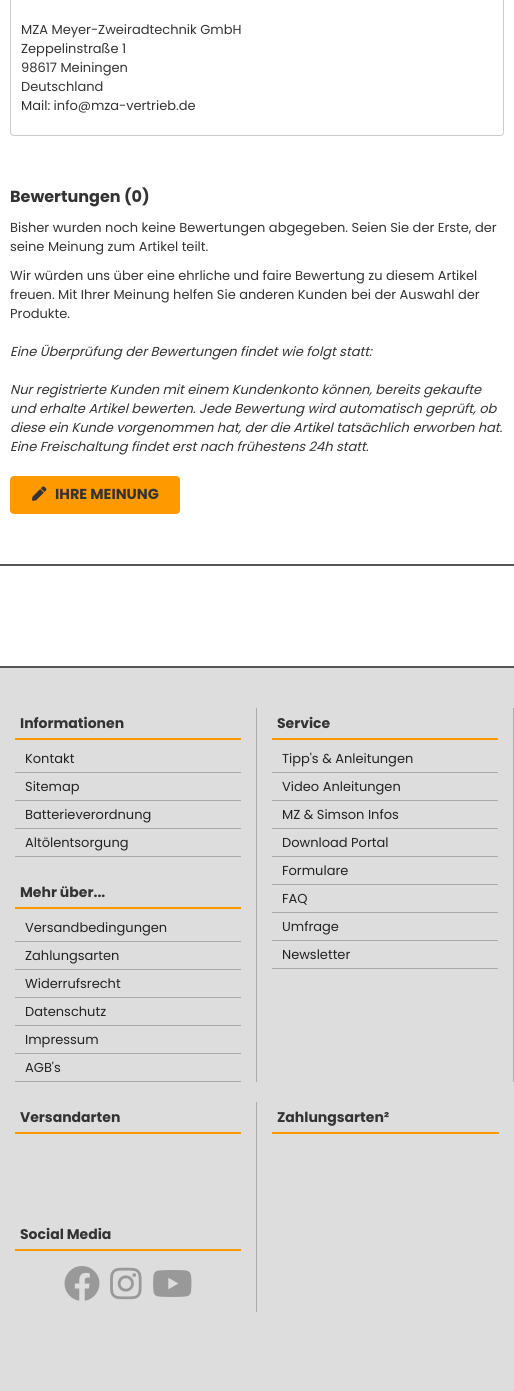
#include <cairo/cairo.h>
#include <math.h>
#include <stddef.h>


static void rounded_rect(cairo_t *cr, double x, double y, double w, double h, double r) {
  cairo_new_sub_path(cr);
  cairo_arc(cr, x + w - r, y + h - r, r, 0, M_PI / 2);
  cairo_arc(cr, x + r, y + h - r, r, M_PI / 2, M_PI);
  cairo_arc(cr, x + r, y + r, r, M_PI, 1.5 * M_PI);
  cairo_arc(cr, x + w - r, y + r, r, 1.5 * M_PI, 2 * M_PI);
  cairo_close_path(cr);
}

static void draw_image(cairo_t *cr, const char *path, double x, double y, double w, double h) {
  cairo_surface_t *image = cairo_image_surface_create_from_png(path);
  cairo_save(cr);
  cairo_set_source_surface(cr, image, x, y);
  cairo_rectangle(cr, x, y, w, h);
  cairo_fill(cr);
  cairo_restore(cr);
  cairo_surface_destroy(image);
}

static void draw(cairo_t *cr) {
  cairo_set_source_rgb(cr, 1, 1, 1);
  cairo_paint(cr);
  cairo_new_path(cr);
  cairo_move_to(cr, 10.5, -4.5);
  cairo_line_to(cr, 503.5, -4.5);
  cairo_line_to(cr, 503.5, 132);
  cairo_curve_to(cr, 503.5, 134, 502, 135.5, 500, 135.5);
  cairo_line_to(cr, 14, 135.5);
  cairo_curve_to(cr, 12, 135.5, 10.5, 134, 10.5, 132);
  cairo_close_path(cr);
  cairo_set_source_rgb(cr, 204 / 255.0, 204 / 255.0, 204 / 255.0);
  cairo_set_line_width(cr, 1);
  cairo_stroke(cr);
  cairo_set_source_rgb(cr, 1, 153 / 255.0, 0);
  rounded_rect(cr, 10.5, 476.5, 169, 37, 3.5);
  cairo_fill_preserve(cr);
  cairo_stroke(cr);
  draw_image(cr, "images/1.png", 32, 486, 15, 15);
  cairo_set_source_rgb(cr, 85 / 255.0, 85 / 255.0, 85 / 255.0);
  cairo_rectangle(cr, 0, 564, 514, 2);
  cairo_fill(cr);
  cairo_set_source_rgb(cr, 221 / 255.0, 221 / 255.0, 221 / 255.0);
  cairo_rectangle(cr, 0, 668, 514, 723);
  cairo_fill(cr);
  cairo_set_source_rgb(cr, 85 / 255.0, 85 / 255.0, 85 / 255.0);
  cairo_rectangle(cr, 0, 666, 514, 2);
  cairo_fill(cr);
  cairo_set_source_rgb(cr, 170 / 255.0, 170 / 255.0, 170 / 255.0);
  cairo_rectangle(cr, 256, 708, 1, 374);
  cairo_fill(cr);
  cairo_set_source_rgb(cr, 1, 153 / 255.0, 0);
  cairo_rectangle(cr, 15, 738, 226, 2);
  cairo_fill(cr);
  cairo_set_source_rgb(cr, 170 / 255.0, 170 / 255.0, 170 / 255.0);
  cairo_rectangle(cr, 15, 772, 226, 1);
  cairo_fill(cr);
  cairo_rectangle(cr, 15, 800, 226, 1);
  cairo_fill(cr);
  cairo_rectangle(cr, 15, 828, 226, 1);
  cairo_fill(cr);
  cairo_rectangle(cr, 15, 856, 226, 1);
  cairo_fill(cr);
  cairo_set_source_rgb(cr, 1, 153 / 255.0, 0);
  cairo_rectangle(cr, 15, 907, 226, 2);
  cairo_fill(cr);
  cairo_set_source_rgb(cr, 170 / 255.0, 170 / 255.0, 170 / 255.0);
  cairo_rectangle(cr, 15, 941, 226, 1);
  cairo_fill(cr);
  cairo_rectangle(cr, 15, 969, 226, 1);
  cairo_fill(cr);
  cairo_rectangle(cr, 15, 997, 226, 1);
  cairo_fill(cr);
  cairo_rectangle(cr, 15, 1025, 226, 1);
  cairo_fill(cr);
  cairo_rectangle(cr, 15, 1053, 226, 1);
  cairo_fill(cr);
  cairo_rectangle(cr, 15, 1081, 226, 1);
  cairo_fill(cr);
  cairo_rectangle(cr, 513, 708, 1, 374);
  cairo_fill(cr);
  cairo_set_source_rgb(cr, 1, 153 / 255.0, 0);
  cairo_rectangle(cr, 272, 738, 226, 2);
  cairo_fill(cr);
  cairo_set_source_rgb(cr, 170 / 255.0, 170 / 255.0, 170 / 255.0);
  cairo_rectangle(cr, 272, 772, 226, 1);
  cairo_fill(cr);
  cairo_rectangle(cr, 272, 800, 226, 1);
  cairo_fill(cr);
  cairo_rectangle(cr, 272, 828, 226, 1);
  cairo_fill(cr);
  cairo_rectangle(cr, 272, 856, 226, 1);
  cairo_fill(cr);
  cairo_rectangle(cr, 272, 884, 226, 1);
  cairo_fill(cr);
  cairo_rectangle(cr, 272, 912, 226, 1);
  cairo_fill(cr);
  cairo_rectangle(cr, 272, 940, 226, 1);
  cairo_fill(cr);
  cairo_rectangle(cr, 272, 968, 226, 1);
  cairo_fill(cr);
  cairo_rectangle(cr, 256, 1102, 1, 210);
  cairo_fill(cr);
  cairo_set_source_rgb(cr, 1, 153 / 255.0, 0);
  cairo_rectangle(cr, 15, 1132, 226, 2);
  cairo_fill(cr);
  cairo_rectangle(cr, 15, 1249, 226, 2);
  cairo_fill(cr);
  draw_image(cr, "images/2.png", 64, 1266, 36, 35);
  draw_image(cr, "images/3.png", 110, 1267, 32, 33);
  draw_image(cr, "images/4.png", 153, 1270, 39, 27);
  cairo_rectangle(cr, 272, 1132, 227, 2);
  cairo_fill(cr);
  cairo_select_font_face(cr, "Poppins", CAIRO_FONT_SLANT_NORMAL, CAIRO_FONT_WEIGHT_NORMAL);
  cairo_set_font_size(cr, 13);
  cairo_set_source_rgb(cr, 51 / 255.0, 51 / 255.0, 51 / 255.0);
  cairo_move_to(cr, 21, 34);
  cairo_show_text(cr, "MZA Meyer-Zweiradtechnik GmbH");
  cairo_move_to(cr, 21, 53);
  cairo_show_text(cr, "Zeppelinstraße 1");
  cairo_move_to(cr, 21, 72);
  cairo_show_text(cr, "98617 Meiningen");
  cairo_move_to(cr, 21, 91);
  cairo_show_text(cr, "Deutschland");
  cairo_move_to(cr, 21, 110);
  cairo_show_text(cr, "Mail: info@mza-vertrieb.de");
  cairo_select_font_face(cr, "Poppins", CAIRO_FONT_SLANT_NORMAL, CAIRO_FONT_WEIGHT_BOLD);
  cairo_set_font_size(cr, 16);
  cairo_move_to(cr, 10, 202);
  cairo_show_text(cr, "Bewertungen (0)");
  cairo_select_font_face(cr, "Poppins", CAIRO_FONT_SLANT_NORMAL, CAIRO_FONT_WEIGHT_NORMAL);
  cairo_set_font_size(cr, 13);
  cairo_move_to(cr, 10, 232);
  cairo_show_text(cr, "Bisher wurden noch keine Bewertungen abgegeben. Seien Sie der Erste, der");
  cairo_move_to(cr, 10, 251);
  cairo_show_text(cr, "seine Meinung zum Artikel teilt.");
  cairo_move_to(cr, 10, 280);
  cairo_show_text(cr, "Wir würden uns über eine ehrliche und faire Bewertung zu diesem Artikel");
  cairo_move_to(cr, 10, 299);
  cairo_show_text(cr, "freuen. Mit Ihrer Meinung helfen Sie anderen Kunden bei der Auswahl der");
  cairo_move_to(cr, 10, 318);
  cairo_show_text(cr, "Produkte.");
  cairo_select_font_face(cr, "Poppins", CAIRO_FONT_SLANT_ITALIC, CAIRO_FONT_WEIGHT_NORMAL);
  cairo_move_to(cr, 10, 356);
  cairo_show_text(cr, "Eine Überprüfung der Bewertungen findet wie folgt statt:");
  cairo_move_to(cr, 10, 394);
  cairo_show_text(cr, "Nur registrierte Kunden mit einem Kundenkonto können, bereits gekaufte");
  cairo_move_to(cr, 10, 413);
  cairo_show_text(cr, "und erhalte Artikel bewerten. Jede Bewertung wird automatisch geprüft, ob");
  cairo_move_to(cr, 10, 432);
  cairo_show_text(cr, "diese ein Kunde vorgenommen hat, der die Artikel tatsächlich erworben hat.");
  cairo_move_to(cr, 10, 451);
  cairo_show_text(cr, "Eine Freischaltung findet erst nach frühestens 24h statt.");
  cairo_select_font_face(cr, "Poppins", CAIRO_FONT_SLANT_NORMAL, CAIRO_FONT_WEIGHT_BOLD);
  cairo_set_font_size(cr, 14.5);
  cairo_move_to(cr, 55, 499);
  cairo_show_text(cr, "IHRE MEINUNG");
  cairo_set_font_size(cr, 14);
  cairo_move_to(cr, 20, 728);
  cairo_show_text(cr, "Informationen");
  cairo_select_font_face(cr, "Poppins", CAIRO_FONT_SLANT_NORMAL, CAIRO_FONT_WEIGHT_NORMAL);
  cairo_set_font_size(cr, 13);
  cairo_set_source_rgb(cr, 34 / 255.0, 34 / 255.0, 34 / 255.0);
  cairo_move_to(cr, 25, 763);
  cairo_show_text(cr, "Kontakt");
  cairo_move_to(cr, 25, 791);
  cairo_show_text(cr, "Sitemap");
  cairo_move_to(cr, 25, 819);
  cairo_show_text(cr, "Batterieverordnung");
  cairo_move_to(cr, 25, 847);
  cairo_show_text(cr, "Altölentsorgung");
  cairo_select_font_face(cr, "Poppins", CAIRO_FONT_SLANT_NORMAL, CAIRO_FONT_WEIGHT_BOLD);
  cairo_set_font_size(cr, 14);
  cairo_set_source_rgb(cr, 51 / 255.0, 51 / 255.0, 51 / 255.0);
  cairo_move_to(cr, 20, 897);
  cairo_show_text(cr, "Mehr über...");
  cairo_select_font_face(cr, "Poppins", CAIRO_FONT_SLANT_NORMAL, CAIRO_FONT_WEIGHT_NORMAL);
  cairo_set_font_size(cr, 13);
  cairo_set_source_rgb(cr, 34 / 255.0, 34 / 255.0, 34 / 255.0);
  cairo_move_to(cr, 25, 932);
  cairo_show_text(cr, "Versandbedingungen");
  cairo_move_to(cr, 25, 960);
  cairo_show_text(cr, "Zahlungsarten");
  cairo_move_to(cr, 25, 988);
  cairo_show_text(cr, "Widerrufsrecht");
  cairo_move_to(cr, 25, 1016);
  cairo_show_text(cr, "Datenschutz");
  cairo_move_to(cr, 25, 1044);
  cairo_show_text(cr, "Impressum");
  cairo_move_to(cr, 25, 1072);
  cairo_show_text(cr, "AGB's");
  cairo_select_font_face(cr, "Poppins", CAIRO_FONT_SLANT_NORMAL, CAIRO_FONT_WEIGHT_BOLD);
  cairo_set_font_size(cr, 14);
  cairo_set_source_rgb(cr, 51 / 255.0, 51 / 255.0, 51 / 255.0);
  cairo_move_to(cr, 277, 728);
  cairo_show_text(cr, "Service");
  cairo_select_font_face(cr, "Poppins", CAIRO_FONT_SLANT_NORMAL, CAIRO_FONT_WEIGHT_NORMAL);
  cairo_set_font_size(cr, 13);
  cairo_set_source_rgb(cr, 34 / 255.0, 34 / 255.0, 34 / 255.0);
  cairo_move_to(cr, 282, 763);
  cairo_show_text(cr, "Tipp's & Anleitungen");
  cairo_move_to(cr, 282, 791);
  cairo_show_text(cr, "Video Anleitungen");
  cairo_move_to(cr, 282, 819);
  cairo_show_text(cr, "MZ & Simson Infos");
  cairo_move_to(cr, 282, 847);
  cairo_show_text(cr, "Download Portal");
  cairo_move_to(cr, 282, 875);
  cairo_show_text(cr, "Formulare");
  cairo_move_to(cr, 282, 903);
  cairo_show_text(cr, "FAQ");
  cairo_move_to(cr, 282, 931);
  cairo_show_text(cr, "Umfrage");
  cairo_move_to(cr, 282, 959);
  cairo_show_text(cr, "Newsletter");
  cairo_select_font_face(cr, "Poppins", CAIRO_FONT_SLANT_NORMAL, CAIRO_FONT_WEIGHT_BOLD);
  cairo_set_font_size(cr, 14);
  cairo_set_source_rgb(cr, 51 / 255.0, 51 / 255.0, 51 / 255.0);
  cairo_move_to(cr, 20, 1122);
  cairo_show_text(cr, "Versandarten");
  cairo_move_to(cr, 20, 1239);
  cairo_show_text(cr, "Social Media");
  cairo_move_to(cr, 277, 1122);
  cairo_show_text(cr, "Zahlungsarten²");
}

int main(void) {
  cairo_surface_t *surface = cairo_image_surface_create(CAIRO_FORMAT_RGB24, 514, 1391);
  cairo_t *cr = cairo_create(surface);
  cairo_font_options_t *options = cairo_font_options_create();
  cairo_font_options_set_hint_metrics(options, CAIRO_HINT_METRICS_OFF);
  cairo_font_options_set_hint_style(options, CAIRO_HINT_STYLE_NONE);
  cairo_set_font_options(cr, options);
  cairo_set_miter_limit(cr, 4);
  draw(cr);
  cairo_surface_write_to_png(surface, "out.png");
  cairo_font_options_destroy(options);
  cairo_destroy(cr);
  cairo_surface_destroy(surface);
  return 0;
}
